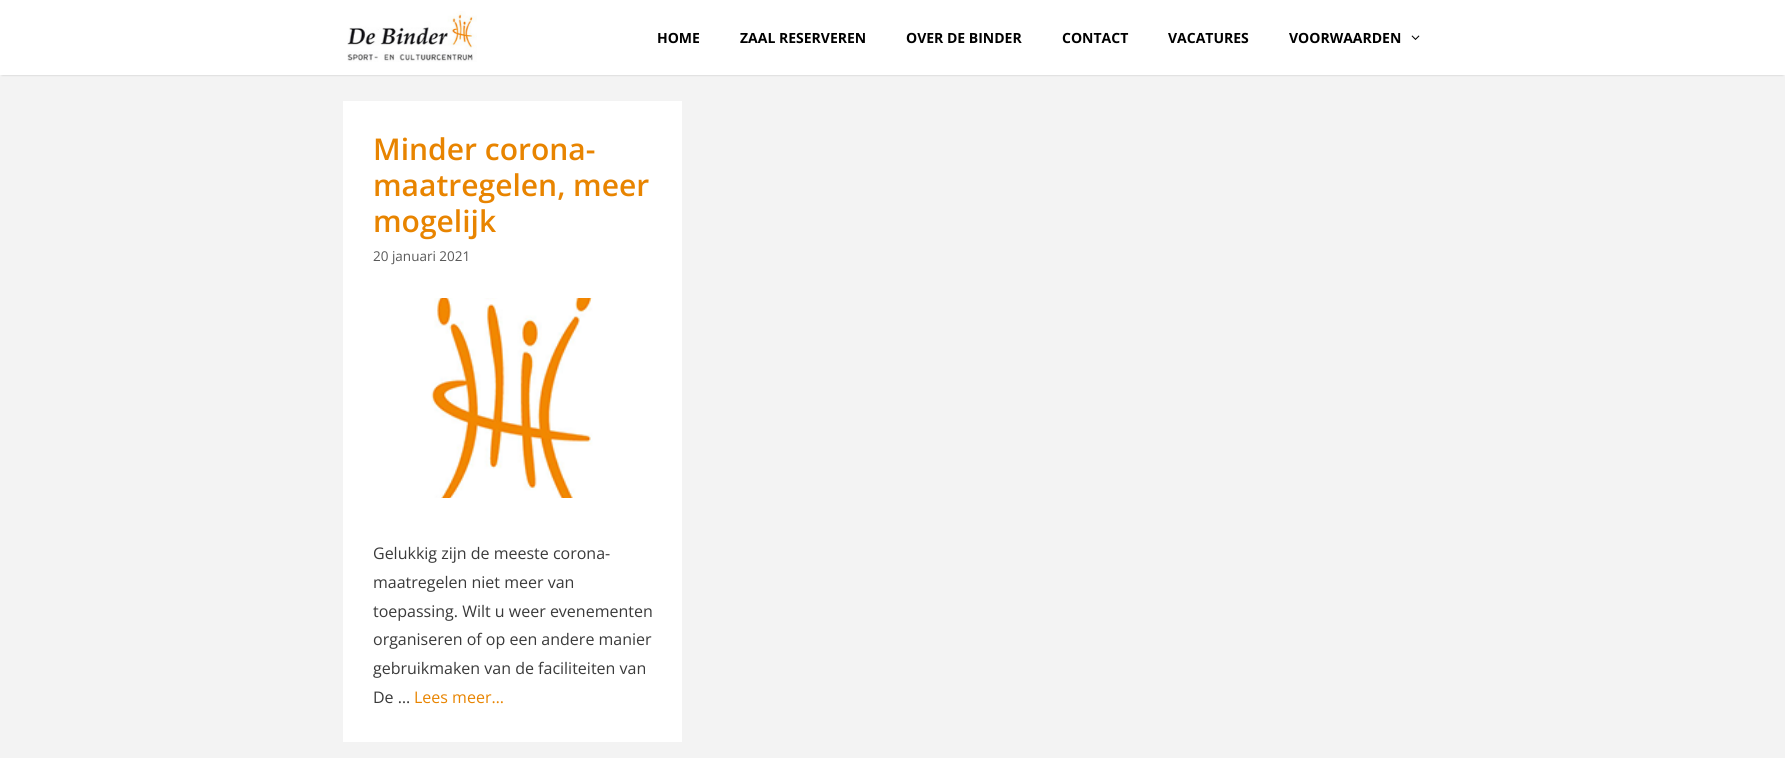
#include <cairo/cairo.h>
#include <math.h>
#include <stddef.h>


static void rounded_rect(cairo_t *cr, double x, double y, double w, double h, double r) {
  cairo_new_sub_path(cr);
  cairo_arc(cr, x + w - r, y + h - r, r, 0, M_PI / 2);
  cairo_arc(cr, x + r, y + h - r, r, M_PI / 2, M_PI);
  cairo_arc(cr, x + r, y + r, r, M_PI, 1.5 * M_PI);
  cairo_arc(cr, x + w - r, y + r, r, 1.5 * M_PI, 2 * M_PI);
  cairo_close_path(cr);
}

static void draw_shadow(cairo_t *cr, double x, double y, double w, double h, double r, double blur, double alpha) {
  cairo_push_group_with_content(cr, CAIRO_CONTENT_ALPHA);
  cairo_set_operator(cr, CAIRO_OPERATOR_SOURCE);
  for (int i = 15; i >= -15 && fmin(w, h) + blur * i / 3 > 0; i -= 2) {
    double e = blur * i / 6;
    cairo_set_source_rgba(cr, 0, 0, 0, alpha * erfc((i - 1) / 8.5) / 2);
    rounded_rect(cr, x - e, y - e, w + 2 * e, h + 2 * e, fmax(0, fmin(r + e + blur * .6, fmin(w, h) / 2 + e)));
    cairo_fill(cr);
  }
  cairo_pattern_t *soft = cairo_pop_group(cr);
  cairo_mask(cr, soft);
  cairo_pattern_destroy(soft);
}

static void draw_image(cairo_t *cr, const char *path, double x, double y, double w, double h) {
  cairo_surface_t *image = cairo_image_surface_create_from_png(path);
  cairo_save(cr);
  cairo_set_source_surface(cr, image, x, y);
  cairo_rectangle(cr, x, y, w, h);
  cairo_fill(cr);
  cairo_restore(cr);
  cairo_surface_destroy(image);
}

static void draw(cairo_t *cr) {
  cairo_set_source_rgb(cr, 243 / 255.0, 243 / 255.0, 243 / 255.0);
  cairo_paint(cr);
  cairo_set_source_rgb(cr, 0, 0, 0);
  draw_shadow(cr, 2, 4, 1781, 71, 0, 1, 0.2);
  cairo_set_source_rgb(cr, 1, 1, 1);
  cairo_rectangle(cr, 0, 0, 1785, 75);
  cairo_fill(cr);
  draw_image(cr, "images/1.png", 347, 11, 130, 51);
  draw_image(cr, "images/2.png", 1411, 35, 9, 5);
  cairo_rectangle(cr, 343, 101, 339, 641);
  cairo_fill(cr);
  draw_image(cr, "images/3.png", 431, 298, 162, 200);
  cairo_select_font_face(cr, "Open Sans", CAIRO_FONT_SLANT_NORMAL, CAIRO_FONT_WEIGHT_BOLD);
  cairo_set_font_size(cr, 14);
  cairo_set_source_rgb(cr, 0, 0, 0);
  cairo_move_to(cr, 657, 43);
  cairo_show_text(cr, "HOME");
  cairo_move_to(cr, 740, 43);
  cairo_show_text(cr, "ZAAL RESERVEREN");
  cairo_move_to(cr, 906, 43);
  cairo_show_text(cr, "OVER DE BINDER");
  cairo_move_to(cr, 1062, 43);
  cairo_show_text(cr, "CONTACT");
  cairo_move_to(cr, 1168, 43);
  cairo_show_text(cr, "VACATURES");
  cairo_move_to(cr, 1289, 43);
  cairo_show_text(cr, "VOORWAARDEN");
  cairo_select_font_face(cr, "Open Sans SemiBold", CAIRO_FONT_SLANT_NORMAL, CAIRO_FONT_WEIGHT_NORMAL);
  cairo_set_font_size(cr, 30);
  cairo_set_source_rgb(cr, 232 / 255.0, 132 / 255.0, 0);
  cairo_move_to(cr, 373, 160);
  cairo_show_text(cr, "Minder corona-");
  cairo_move_to(cr, 373, 196);
  cairo_show_text(cr, "maatregelen, meer");
  cairo_move_to(cr, 373, 232);
  cairo_show_text(cr, "mogelijk");
  cairo_select_font_face(cr, "Open Sans", CAIRO_FONT_SLANT_NORMAL, CAIRO_FONT_WEIGHT_NORMAL);
  cairo_set_font_size(cr, 13.5);
  cairo_set_source_rgb(cr, 89 / 255.0, 89 / 255.0, 89 / 255.0);
  cairo_move_to(cr, 373, 261);
  cairo_show_text(cr, "20 januari 2021");
  cairo_set_font_size(cr, 16);
  cairo_set_source_rgb(cr, 58 / 255.0, 58 / 255.0, 58 / 255.0);
  cairo_move_to(cr, 373, 559);
  cairo_show_text(cr, "Gelukkig zijn de meeste corona-");
  cairo_move_to(cr, 373, 588);
  cairo_show_text(cr, "maatregelen niet meer van");
  cairo_move_to(cr, 373, 617);
  cairo_show_text(cr, "toepassing. Wilt u weer evenementen");
  cairo_move_to(cr, 373, 645);
  cairo_show_text(cr, "organiseren of op een andere manier");
  cairo_move_to(cr, 373, 674);
  cairo_show_text(cr, "gebruikmaken van de faciliteiten van");
  cairo_move_to(cr, 373, 703);
  cairo_show_text(cr, "De …");
  cairo_set_source_rgb(cr, 232 / 255.0, 132 / 255.0, 0);
  cairo_move_to(cr, 414, 703);
  cairo_show_text(cr, "Lees meer…");
}

int main(void) {
  cairo_surface_t *surface = cairo_image_surface_create(CAIRO_FORMAT_RGB24, 1785, 758);
  cairo_t *cr = cairo_create(surface);
  cairo_font_options_t *options = cairo_font_options_create();
  cairo_font_options_set_hint_metrics(options, CAIRO_HINT_METRICS_OFF);
  cairo_font_options_set_hint_style(options, CAIRO_HINT_STYLE_NONE);
  cairo_set_font_options(cr, options);
  cairo_set_miter_limit(cr, 4);
  draw(cr);
  cairo_surface_write_to_png(surface, "out.png");
  cairo_font_options_destroy(options);
  cairo_destroy(cr);
  cairo_surface_destroy(surface);
  return 0;
}
